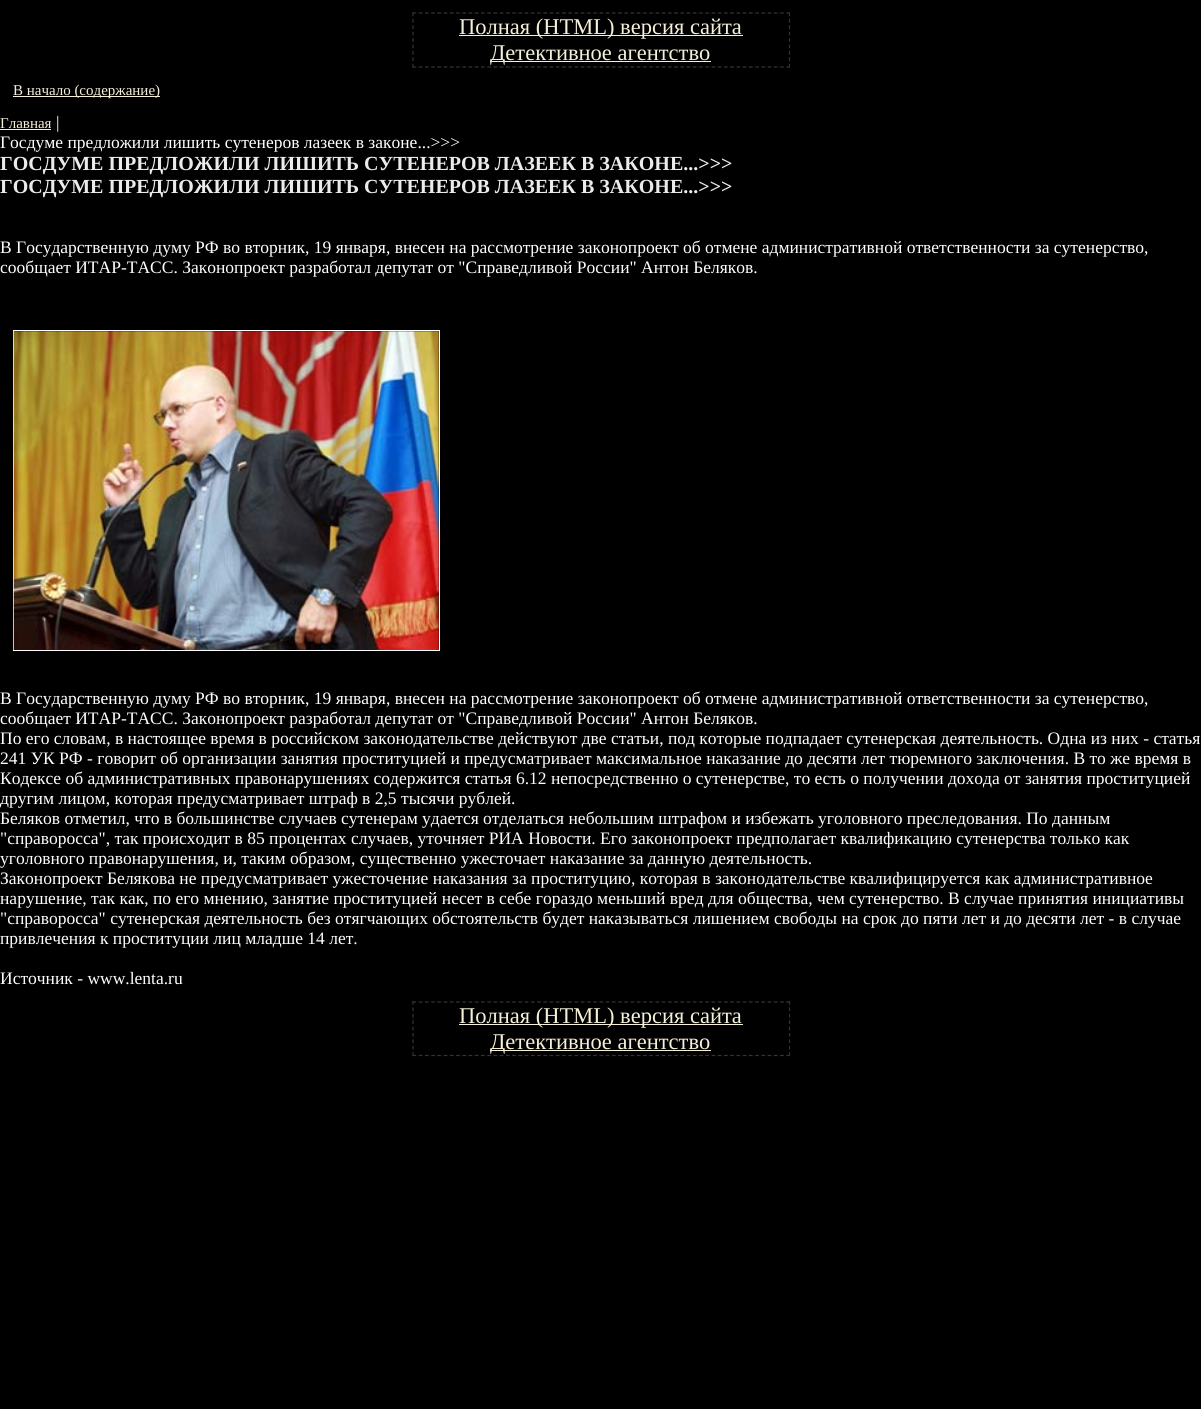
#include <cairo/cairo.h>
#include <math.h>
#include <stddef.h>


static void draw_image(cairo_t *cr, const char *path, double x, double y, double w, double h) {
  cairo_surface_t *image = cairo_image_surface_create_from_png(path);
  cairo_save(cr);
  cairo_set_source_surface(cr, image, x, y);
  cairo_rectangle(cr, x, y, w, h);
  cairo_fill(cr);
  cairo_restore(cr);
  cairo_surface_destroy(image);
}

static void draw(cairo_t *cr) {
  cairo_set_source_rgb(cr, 0, 0, 0);
  cairo_paint(cr);
  cairo_new_path(cr);
  cairo_move_to(cr, 412.5, 13);
  cairo_line_to(cr, 790, 13);
  cairo_set_source_rgb(cr, 51 / 255.0, 51 / 255.0, 51 / 255.0);
  cairo_set_line_width(cr, 1.2);
  cairo_set_dash(cr, (double[]){3.75, 2.48}, 2, 0);
  cairo_stroke(cr);
  cairo_new_path(cr);
  cairo_move_to(cr, 789.5, 12.5);
  cairo_line_to(cr, 789.5, 67.5);
  cairo_set_dash(cr, (double[]){3.75, 2.65}, 2, 0);
  cairo_stroke(cr);
  cairo_new_path(cr);
  cairo_move_to(cr, 412.5, 67);
  cairo_line_to(cr, 790, 67);
  cairo_set_dash(cr, (double[]){3.75, 2.48}, 2, 0);
  cairo_stroke(cr);
  cairo_new_path(cr);
  cairo_move_to(cr, 413, 12.5);
  cairo_line_to(cr, 413, 67.5);
  cairo_set_dash(cr, (double[]){3.75, 2.65}, 2, 0);
  cairo_stroke(cr);
  cairo_set_source_rgb(cr, 245 / 255.0, 240 / 255.0, 217 / 255.0);
  cairo_rectangle(cr, 459, 35, 284, 1);
  cairo_fill(cr);
  cairo_rectangle(cr, 490, 61, 221, 1);
  cairo_fill(cr);
  cairo_rectangle(cr, 13, 96, 147, 1);
  cairo_fill(cr);
  cairo_rectangle(cr, 0, 129, 51, 1);
  cairo_fill(cr);
  cairo_rectangle(cr, 13.5, 330.5, 426, 320);
  cairo_set_source_rgb(cr, 1, 1, 1);
  cairo_set_line_width(cr, 1);
  cairo_set_dash(cr, NULL, 0, 0);
  cairo_stroke(cr);
  draw_image(cr, "images/1.png", 13, 331, 426, 319);
  cairo_new_path(cr);
  cairo_move_to(cr, 412.5, 1002);
  cairo_line_to(cr, 790, 1002);
  cairo_set_source_rgb(cr, 51 / 255.0, 51 / 255.0, 51 / 255.0);
  cairo_set_line_width(cr, 1.2);
  cairo_set_dash(cr, (double[]){3.75, 2.48}, 2, 0);
  cairo_stroke(cr);
  cairo_new_path(cr);
  cairo_move_to(cr, 789.5, 1001);
  cairo_line_to(cr, 789.5, 1056);
  cairo_set_dash(cr, (double[]){3.75, 2.65}, 2, 0);
  cairo_stroke(cr);
  cairo_new_path(cr);
  cairo_move_to(cr, 412.5, 1055.5);
  cairo_line_to(cr, 790, 1055.5);
  cairo_set_dash(cr, (double[]){3.75, 2.48}, 2, 0);
  cairo_stroke(cr);
  cairo_new_path(cr);
  cairo_move_to(cr, 413, 1001);
  cairo_line_to(cr, 413, 1056);
  cairo_set_dash(cr, (double[]){3.75, 2.65}, 2, 0);
  cairo_stroke(cr);
  cairo_set_source_rgb(cr, 245 / 255.0, 240 / 255.0, 217 / 255.0);
  cairo_rectangle(cr, 459, 1024, 284, 1);
  cairo_fill(cr);
  cairo_rectangle(cr, 490, 1050, 221, 1);
  cairo_fill(cr);
  cairo_select_font_face(cr, "Liberation Serif", CAIRO_FONT_SLANT_NORMAL, CAIRO_FONT_WEIGHT_NORMAL);
  cairo_set_font_size(cr, 22.5);
  cairo_move_to(cr, 459, 34);
  cairo_show_text(cr, "Полная (HTML) версия сайта");
  cairo_move_to(cr, 490, 60);
  cairo_show_text(cr, "Детективное агентство");
  cairo_set_font_size(cr, 15);
  cairo_move_to(cr, 13, 95);
  cairo_show_text(cr, "В начало (содержание)");
  cairo_move_to(cr, 0, 128);
  cairo_show_text(cr, "Главная");
  cairo_set_font_size(cr, 17.5);
  cairo_set_source_rgb(cr, 1, 1, 1);
  cairo_move_to(cr, 56, 128);
  cairo_show_text(cr, "|");
  cairo_move_to(cr, 0, 148);
  cairo_show_text(cr, "Госдуме предложили лишить сутенеров лазеек в законе...>>>");
  cairo_select_font_face(cr, "Liberation Serif", CAIRO_FONT_SLANT_NORMAL, CAIRO_FONT_WEIGHT_BOLD);
  cairo_set_font_size(cr, 20);
  cairo_set_source_rgb(cr, 235 / 255.0, 235 / 255.0, 235 / 255.0);
  cairo_move_to(cr, 0, 170);
  cairo_show_text(cr, "ГОСДУМЕ ПРЕДЛОЖИЛИ ЛИШИТЬ СУТЕНЕРОВ ЛАЗЕЕК В ЗАКОНЕ...>>>");
  cairo_move_to(cr, 0, 193);
  cairo_show_text(cr, "ГОСДУМЕ ПРЕДЛОЖИЛИ ЛИШИТЬ СУТЕНЕРОВ ЛАЗЕЕК В ЗАКОНЕ...>>>");
  cairo_select_font_face(cr, "Liberation Serif", CAIRO_FONT_SLANT_NORMAL, CAIRO_FONT_WEIGHT_NORMAL);
  cairo_set_font_size(cr, 17.5);
  cairo_set_source_rgb(cr, 1, 1, 1);
  cairo_move_to(cr, 0, 253);
  cairo_show_text(cr, "В Государственную думу РФ во вторник, 19 января, внесен на рассмотрение законопроект об отмене административной ответственности за сутенерство,");
  cairo_move_to(cr, 0, 273);
  cairo_show_text(cr, "сообщает ИТАР-ТАСС. Законопроект разработал депутат от \"Справедливой России\" Антон Беляков.");
  cairo_move_to(cr, 0, 704);
  cairo_show_text(cr, "В Государственную думу РФ во вторник, 19 января, внесен на рассмотрение законопроект об отмене административной ответственности за сутенерство,");
  cairo_move_to(cr, 0, 724);
  cairo_show_text(cr, "сообщает ИТАР-ТАСС. Законопроект разработал депутат от \"Справедливой России\" Антон Беляков.");
  cairo_move_to(cr, 0, 744);
  cairo_show_text(cr, "По его словам, в настоящее время в российском законодательстве действуют две статьи, под которые подпадает сутенерская деятельность. Одна из них - статья");
  cairo_move_to(cr, 0, 764);
  cairo_show_text(cr, "241 УК РФ - говорит об организации занятия проституцией и предусматривает максимальное наказание до десяти лет тюремного заключения. В то же время в");
  cairo_move_to(cr, 0, 784);
  cairo_show_text(cr, "Кодексе об административных правонарушениях содержится статья 6.12 непосредственно о сутенерстве, то есть о получении дохода от занятия проституцией");
  cairo_move_to(cr, 0, 804);
  cairo_show_text(cr, "другим лицом, которая предусматривает штраф в 2,5 тысячи рублей.");
  cairo_move_to(cr, 0, 824);
  cairo_show_text(cr, "Беляков отметил, что в большинстве случаев сутенерам удается отделаться небольшим штрафом и избежать уголовного преследования. По данным");
  cairo_move_to(cr, 0, 844);
  cairo_show_text(cr, "\"справоросса\", так происходит в 85 процентах случаев, уточняет РИА Новости. Его законопроект предполагает квалификацию сутенерства только как");
  cairo_move_to(cr, 0, 864);
  cairo_show_text(cr, "уголовного правонарушения, и, таким образом, существенно ужесточает наказание за данную деятельность.");
  cairo_move_to(cr, 0, 884);
  cairo_show_text(cr, "Законопроект Белякова не предусматривает ужесточение наказания за проституцию, которая в законодательстве квалифицируется как административное");
  cairo_move_to(cr, 0, 904);
  cairo_show_text(cr, "нарушение, так как, по его мнению, занятие проституцией несет в себе гораздо меньший вред для общества, чем сутенерство. В случае принятия инициативы");
  cairo_move_to(cr, 0, 924);
  cairo_show_text(cr, "\"справоросса\" сутенерская деятельность без отягчающих обстоятельств будет наказываться лишением свободы на срок до пяти лет и до десяти лет - в случае");
  cairo_move_to(cr, 0, 944);
  cairo_show_text(cr, "привлечения к проституции лиц младше 14 лет.");
  cairo_move_to(cr, 0, 984);
  cairo_show_text(cr, "Источник - www.lenta.ru");
  cairo_set_font_size(cr, 22.5);
  cairo_set_source_rgb(cr, 245 / 255.0, 240 / 255.0, 217 / 255.0);
  cairo_move_to(cr, 459, 1023);
  cairo_show_text(cr, "Полная (HTML) версия сайта");
  cairo_move_to(cr, 490, 1049);
  cairo_show_text(cr, "Детективное агентство");
}

int main(void) {
  cairo_surface_t *surface = cairo_image_surface_create(CAIRO_FORMAT_RGB24, 1201, 1409);
  cairo_t *cr = cairo_create(surface);
  cairo_font_options_t *options = cairo_font_options_create();
  cairo_font_options_set_hint_metrics(options, CAIRO_HINT_METRICS_OFF);
  cairo_font_options_set_hint_style(options, CAIRO_HINT_STYLE_NONE);
  cairo_set_font_options(cr, options);
  cairo_set_miter_limit(cr, 4);
  draw(cr);
  cairo_surface_write_to_png(surface, "out.png");
  cairo_font_options_destroy(options);
  cairo_destroy(cr);
  cairo_surface_destroy(surface);
  return 0;
}
